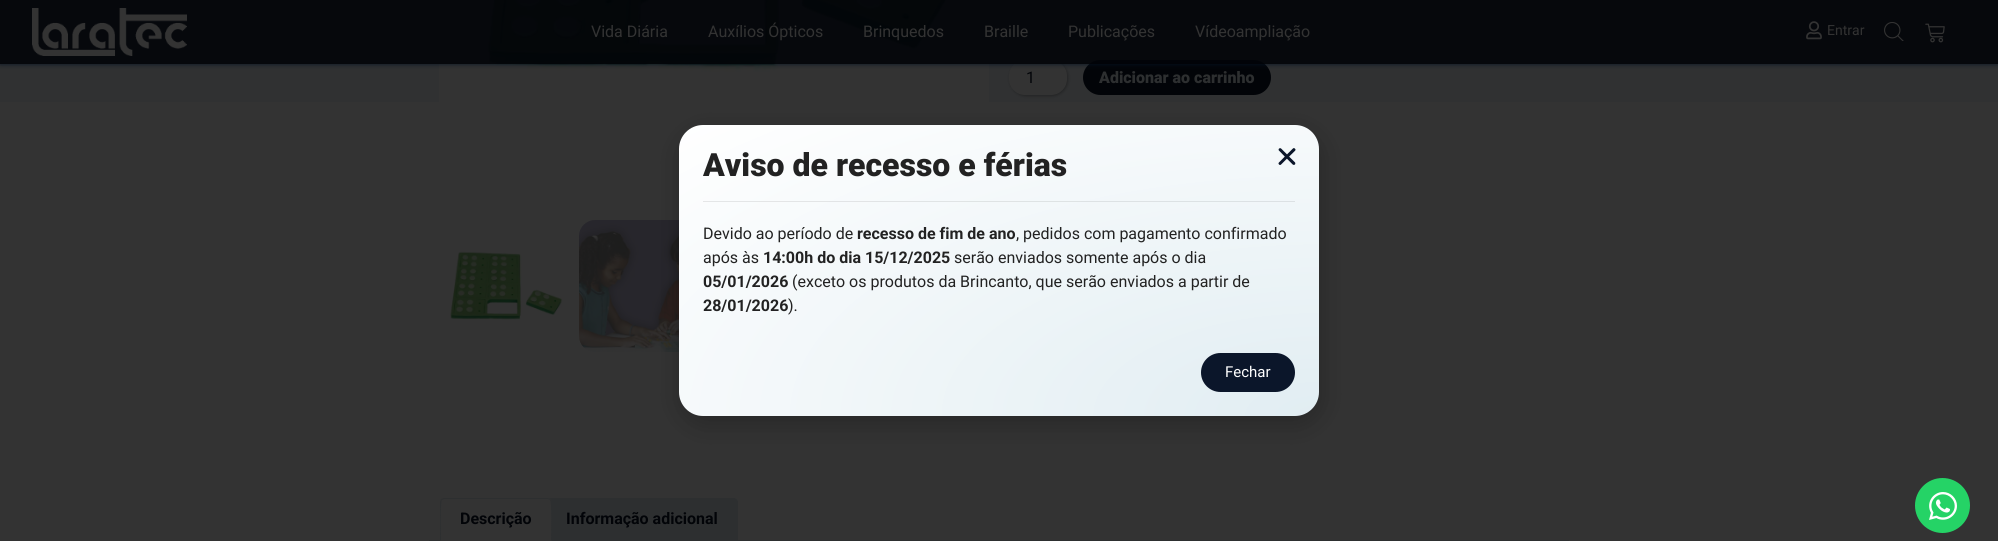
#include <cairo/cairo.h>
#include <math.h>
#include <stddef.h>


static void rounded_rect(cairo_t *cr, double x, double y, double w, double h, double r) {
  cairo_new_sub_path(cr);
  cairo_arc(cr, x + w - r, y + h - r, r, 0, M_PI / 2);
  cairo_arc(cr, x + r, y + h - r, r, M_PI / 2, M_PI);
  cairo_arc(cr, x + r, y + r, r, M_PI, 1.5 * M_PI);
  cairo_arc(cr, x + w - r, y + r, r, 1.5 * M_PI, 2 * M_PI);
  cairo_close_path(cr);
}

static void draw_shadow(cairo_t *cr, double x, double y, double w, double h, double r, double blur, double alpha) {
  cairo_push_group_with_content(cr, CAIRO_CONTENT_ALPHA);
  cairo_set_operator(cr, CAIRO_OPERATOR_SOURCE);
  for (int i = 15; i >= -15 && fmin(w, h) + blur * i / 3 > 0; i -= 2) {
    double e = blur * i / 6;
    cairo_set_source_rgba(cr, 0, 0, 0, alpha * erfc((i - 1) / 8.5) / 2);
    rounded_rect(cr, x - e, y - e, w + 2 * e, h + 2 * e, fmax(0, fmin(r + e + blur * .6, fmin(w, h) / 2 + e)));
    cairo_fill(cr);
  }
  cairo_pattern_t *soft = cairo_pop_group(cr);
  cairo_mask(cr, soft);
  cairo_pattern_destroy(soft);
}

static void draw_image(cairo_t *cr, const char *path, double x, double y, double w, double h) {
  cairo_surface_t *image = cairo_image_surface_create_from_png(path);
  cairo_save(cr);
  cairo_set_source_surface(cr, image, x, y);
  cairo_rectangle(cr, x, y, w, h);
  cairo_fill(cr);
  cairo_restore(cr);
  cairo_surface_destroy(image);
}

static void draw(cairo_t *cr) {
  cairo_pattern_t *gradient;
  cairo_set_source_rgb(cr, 51 / 255.0, 51 / 255.0, 51 / 255.0);
  cairo_paint(cr);
  gradient = cairo_pattern_create_linear(999, -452, 999, 498);
  cairo_pattern_add_color_stop_rgba(gradient, 0, 45 / 255.0, 47 / 255.0, 48 / 255.0, 1);
  cairo_pattern_add_color_stop_rgba(gradient, 1, 51 / 255.0, 51 / 255.0, 51 / 255.0, 1);
  cairo_set_source(cr, gradient);
  cairo_pattern_destroy(gradient);
  cairo_rectangle(cr, 0, 0, 1998, 102);
  cairo_fill(cr);
  cairo_set_source_rgb(cr, 51 / 255.0, 51 / 255.0, 51 / 255.0);
  rounded_rect(cr, 439, -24, 550, 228, 24);
  cairo_fill(cr);
  draw_image(cr, "images/5.png", 485, 0, 462, 72);
  cairo_set_source_rgb(cr, 0, 0, 0);
  draw_shadow(cr, 1010, 61, 58, 35, 16, 1.5, 0.3);
  cairo_set_source_rgb(cr, 51 / 255.0, 51 / 255.0, 51 / 255.0);
  rounded_rect(cr, 1009, 60, 58, 35, 16);
  cairo_fill(cr);
  cairo_set_source_rgb(cr, 2 / 255.0, 4 / 255.0, 8 / 255.0);
  rounded_rect(cr, 1083, 60, 188, 35, 17.5);
  cairo_fill(cr);
  cairo_save(cr);
  cairo_rectangle(cr, 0, 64, 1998, 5);
  cairo_clip(cr);
  cairo_set_source_rgb(cr, 4 / 255.0, 18 / 255.0, 34 / 255.0);
  draw_shadow(cr, 0, 0, 1998, 64, 0, 2.5, 1);
  cairo_restore(cr);
  cairo_set_source_rgba(cr, 2 / 255.0, 4 / 255.0, 8 / 255.0, 0.9);
  cairo_rectangle(cr, 0, 0, 1998, 64);
  cairo_fill(cr);
  draw_image(cr, "images/1.png", 32, 8, 155, 48);
  draw_image(cr, "images/2.png", 1806, 21, 16, 19);
  draw_image(cr, "images/3.png", 1884, 22, 20, 19);
  draw_image(cr, "images/4.png", 1925, 23, 20, 20);
  draw_image(cr, "images/6.png", 450, 251, 113, 69);
  draw_image(cr, "images/7.png", 579, 220, 100, 132);
  cairo_set_source_rgb(cr, 45 / 255.0, 47 / 255.0, 48 / 255.0);
  cairo_rectangle(cr, 429, 540, 1140, 1);
  cairo_fill(cr);
  cairo_new_path(cr);
  cairo_move_to(cr, 550, 498);
  cairo_line_to(cr, 734, 498);
  cairo_curve_to(cr, 736, 498, 738, 500, 738, 502);
  cairo_line_to(cr, 738, 541);
  cairo_line_to(cr, 546, 541);
  cairo_line_to(cr, 546, 502);
  cairo_curve_to(cr, 546, 500, 548, 498, 550, 498);
  cairo_close_path(cr);
  cairo_fill(cr);
  cairo_set_source_rgb(cr, 51 / 255.0, 51 / 255.0, 51 / 255.0);
  cairo_new_path(cr);
  cairo_move_to(cr, 444, 498);
  cairo_line_to(cr, 548, 498);
  cairo_curve_to(cr, 550, 498, 552, 500, 552, 502);
  cairo_line_to(cr, 552, 541);
  cairo_line_to(cr, 440, 541);
  cairo_line_to(cr, 440, 502);
  cairo_curve_to(cr, 440, 500, 442, 498, 444, 498);
  cairo_close_path(cr);
  cairo_fill(cr);
  cairo_set_source_rgb(cr, 45 / 255.0, 47 / 255.0, 48 / 255.0);
  cairo_new_path(cr);
  cairo_move_to(cr, 444, 498);
  cairo_line_to(cr, 441, 499);
  cairo_line_to(cr, 442, 500);
  cairo_line_to(cr, 444, 499);
  cairo_line_to(cr, 548, 499);
  cairo_line_to(cr, 550, 500);
  cairo_line_to(cr, 551, 499);
  cairo_line_to(cr, 548, 498);
  cairo_close_path(cr);
  cairo_fill(cr);
  cairo_new_path(cr);
  cairo_move_to(cr, 552, 541);
  cairo_line_to(cr, 552, 502);
  cairo_curve_to(cr, 552, 501, 552, 500, 551, 499);
  cairo_line_to(cr, 550, 500);
  cairo_curve_to(cr, 552, 502, 551, 535, 551, 540);
  cairo_close_path(cr);
  cairo_fill(cr);
  cairo_new_path(cr);
  cairo_move_to(cr, 440, 541);
  cairo_line_to(cr, 441, 540);
  cairo_curve_to(cr, 441, 535, 440, 502, 442, 500);
  cairo_line_to(cr, 441, 499);
  cairo_line_to(cr, 440, 502);
  cairo_close_path(cr);
  cairo_fill(cr);
  cairo_set_source_rgb(cr, 0, 0, 0);
  draw_shadow(cr, 678, 130, 646, 297, 27, 11.5, 0.2);
  gradient = cairo_pattern_create_radial(0, 0, 0, 0, 0, 1);
  cairo_pattern_set_matrix(gradient, &(cairo_matrix_t){1.0 / 905, 0, 0, 1.0 / 412, -1.0 * 1319 / 905, -1.0 * 416 / 412});
  cairo_pattern_add_color_stop_rgba(gradient, 0, 225 / 255.0, 237 / 255.0, 242 / 255.0, 1);
  cairo_pattern_add_color_stop_rgba(gradient, 1, 1, 1, 1, 1);
  cairo_set_source(cr, gradient);
  cairo_pattern_destroy(gradient);
  rounded_rect(cr, 679, 125, 640, 291, 24);
  cairo_fill(cr);
  cairo_set_source_rgba(cr, 34 / 255.0, 34 / 255.0, 34 / 255.0, 0.1);
  cairo_rectangle(cr, 703, 201, 592, 1);
  cairo_fill(cr);
  cairo_set_source_rgb(cr, 11 / 255.0, 22 / 255.0, 42 / 255.0);
  rounded_rect(cr, 1201, 353, 94, 39, 19.5);
  cairo_fill(cr);
  draw_image(cr, "images/8.png", 1278, 148, 18, 17);
  cairo_set_source_rgb(cr, 37 / 255.0, 211 / 255.0, 102 / 255.0);
  cairo_arc(cr, 1942.5, 505.5, 27.5, 0, 2 * M_PI);
  cairo_fill(cr);
  draw_image(cr, "images/9.png", 1929, 492, 28, 28);
  cairo_select_font_face(cr, "Roboto", CAIRO_FONT_SLANT_NORMAL, CAIRO_FONT_WEIGHT_NORMAL);
  cairo_set_font_size(cr, 16);
  cairo_set_source_rgb(cr, 51 / 255.0, 51 / 255.0, 51 / 255.0);
  cairo_move_to(cr, 591, 37);
  cairo_show_text(cr, "Vida Diária");
  cairo_move_to(cr, 708, 37);
  cairo_show_text(cr, "Auxílios Ópticos");
  cairo_move_to(cr, 863, 37);
  cairo_show_text(cr, "Brinquedos");
  cairo_move_to(cr, 984, 37);
  cairo_show_text(cr, "Braille");
  cairo_move_to(cr, 1068, 37);
  cairo_show_text(cr, "Publicações");
  cairo_move_to(cr, 1195, 37);
  cairo_show_text(cr, "Vídeoampliação");
  cairo_set_font_size(cr, 14);
  cairo_move_to(cr, 1827, 35);
  cairo_show_text(cr, "Entrar");
  cairo_set_font_size(cr, 16);
  cairo_set_source_rgb(cr, 2 / 255.0, 4 / 255.0, 8 / 255.0);
  cairo_move_to(cr, 1026, 83);
  cairo_show_text(cr, "1");
  cairo_select_font_face(cr, "Roboto Black", CAIRO_FONT_SLANT_NORMAL, CAIRO_FONT_WEIGHT_NORMAL);
  cairo_set_source_rgb(cr, 45 / 255.0, 47 / 255.0, 48 / 255.0);
  cairo_move_to(cr, 1099, 83);
  cairo_show_text(cr, "Adicionar ao carrinho");
  cairo_select_font_face(cr, "Roboto", CAIRO_FONT_SLANT_NORMAL, CAIRO_FONT_WEIGHT_BOLD);
  cairo_set_source_rgb(cr, 2 / 255.0, 4 / 255.0, 8 / 255.0);
  cairo_move_to(cr, 460, 524);
  cairo_show_text(cr, "Descrição");
  cairo_move_to(cr, 566, 524);
  cairo_show_text(cr, "Informação adicional");
  cairo_select_font_face(cr, "Roboto Black", CAIRO_FONT_SLANT_NORMAL, CAIRO_FONT_WEIGHT_NORMAL);
  cairo_set_font_size(cr, 32);
  cairo_set_source_rgb(cr, 34 / 255.0, 34 / 255.0, 34 / 255.0);
  cairo_move_to(cr, 703, 176);
  cairo_show_text(cr, "Aviso de recesso e férias");
  cairo_select_font_face(cr, "Roboto", CAIRO_FONT_SLANT_NORMAL, CAIRO_FONT_WEIGHT_NORMAL);
  cairo_set_font_size(cr, 16);
  cairo_move_to(cr, 703, 239);
  cairo_show_text(cr, "Devido ao período de");
  cairo_select_font_face(cr, "Roboto", CAIRO_FONT_SLANT_NORMAL, CAIRO_FONT_WEIGHT_BOLD);
  cairo_move_to(cr, 857, 239);
  cairo_show_text(cr, "recesso de fim de ano");
  cairo_select_font_face(cr, "Roboto", CAIRO_FONT_SLANT_NORMAL, CAIRO_FONT_WEIGHT_NORMAL);
  cairo_move_to(cr, 1016, 239);
  cairo_show_text(cr, ", pedidos com pagamento confirmado");
  cairo_move_to(cr, 703, 263);
  cairo_show_text(cr, "após às");
  cairo_select_font_face(cr, "Roboto", CAIRO_FONT_SLANT_NORMAL, CAIRO_FONT_WEIGHT_BOLD);
  cairo_move_to(cr, 763, 263);
  cairo_show_text(cr, "14:00h do dia 15/12/2025");
  cairo_select_font_face(cr, "Roboto", CAIRO_FONT_SLANT_NORMAL, CAIRO_FONT_WEIGHT_NORMAL);
  cairo_move_to(cr, 954, 263);
  cairo_show_text(cr, "serão enviados somente após o dia");
  cairo_select_font_face(cr, "Roboto", CAIRO_FONT_SLANT_NORMAL, CAIRO_FONT_WEIGHT_BOLD);
  cairo_move_to(cr, 703, 287);
  cairo_show_text(cr, "05/01/2026");
  cairo_select_font_face(cr, "Roboto", CAIRO_FONT_SLANT_NORMAL, CAIRO_FONT_WEIGHT_NORMAL);
  cairo_move_to(cr, 792, 287);
  cairo_show_text(cr, "(exceto os produtos da Brincanto, que serão enviados a partir de");
  cairo_select_font_face(cr, "Roboto", CAIRO_FONT_SLANT_NORMAL, CAIRO_FONT_WEIGHT_BOLD);
  cairo_move_to(cr, 703, 311);
  cairo_show_text(cr, "28/01/2026");
  cairo_select_font_face(cr, "Roboto", CAIRO_FONT_SLANT_NORMAL, CAIRO_FONT_WEIGHT_NORMAL);
  cairo_move_to(cr, 788, 311);
  cairo_show_text(cr, ").");
  cairo_set_font_size(cr, 15);
  cairo_set_source_rgb(cr, 1, 1, 1);
  cairo_move_to(cr, 1225, 377);
  cairo_show_text(cr, "Fechar");
}

int main(void) {
  cairo_surface_t *surface = cairo_image_surface_create(CAIRO_FORMAT_RGB24, 1998, 541);
  cairo_t *cr = cairo_create(surface);
  cairo_font_options_t *options = cairo_font_options_create();
  cairo_font_options_set_hint_metrics(options, CAIRO_HINT_METRICS_OFF);
  cairo_font_options_set_hint_style(options, CAIRO_HINT_STYLE_NONE);
  cairo_set_font_options(cr, options);
  cairo_set_miter_limit(cr, 4);
  draw(cr);
  cairo_surface_write_to_png(surface, "out.png");
  cairo_font_options_destroy(options);
  cairo_destroy(cr);
  cairo_surface_destroy(surface);
  return 0;
}
